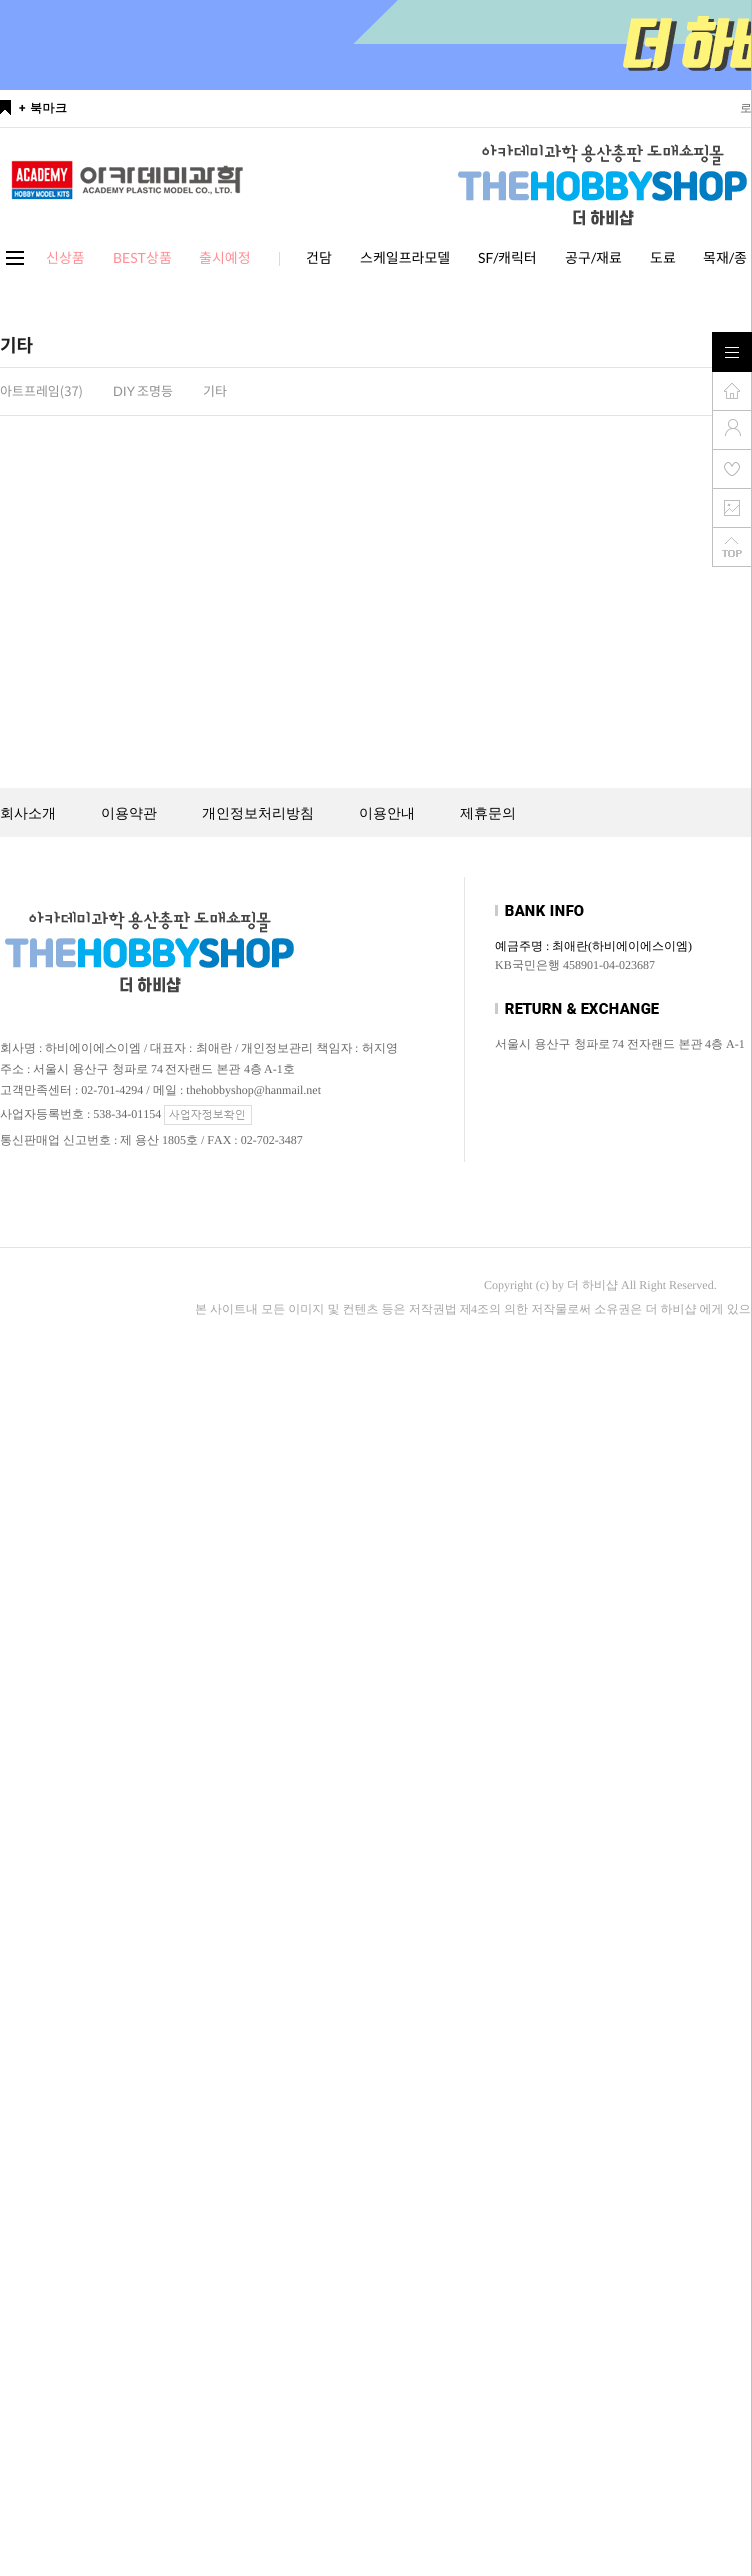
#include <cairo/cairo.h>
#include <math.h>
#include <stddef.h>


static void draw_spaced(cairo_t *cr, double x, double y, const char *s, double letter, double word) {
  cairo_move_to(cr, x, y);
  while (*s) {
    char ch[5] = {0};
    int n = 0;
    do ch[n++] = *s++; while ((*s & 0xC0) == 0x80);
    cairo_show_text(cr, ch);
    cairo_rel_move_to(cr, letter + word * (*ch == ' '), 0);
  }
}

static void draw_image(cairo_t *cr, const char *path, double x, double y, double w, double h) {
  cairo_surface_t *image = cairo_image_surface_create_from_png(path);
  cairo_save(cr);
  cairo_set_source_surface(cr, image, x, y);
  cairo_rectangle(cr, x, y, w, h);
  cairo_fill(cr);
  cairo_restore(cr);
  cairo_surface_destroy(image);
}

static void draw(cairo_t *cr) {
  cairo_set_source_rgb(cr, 1, 1, 1);
  cairo_paint(cr);
  draw_image(cr, "images/7.png", 0, 0, 751, 90);
  cairo_set_source_rgb(cr, 229 / 255.0, 229 / 255.0, 229 / 255.0);
  cairo_rectangle(cr, 0, 127, 752, 1);
  cairo_fill(cr);
  draw_image(cr, "images/8.png", 0, 100, 11, 15);
  draw_image(cr, "images/9.png", 11, 160, 232, 40);
  draw_image(cr, "images/10.png", 458, 144, 289, 82);
  draw_image(cr, "images/11.png", 6, 251, 18, 14);
  cairo_set_source_rgb(cr, 218 / 255.0, 218 / 255.0, 221 / 255.0);
  cairo_rectangle(cr, 279, 252, 1, 14);
  cairo_fill(cr);
  cairo_set_source_rgb(cr, 227 / 255.0, 227 / 255.0, 227 / 255.0);
  cairo_rectangle(cr, 0, 367, 712, 1);
  cairo_fill(cr);
  cairo_rectangle(cr, 0, 415, 712, 1);
  cairo_fill(cr);
  cairo_set_source_rgb(cr, 242 / 255.0, 242 / 255.0, 242 / 255.0);
  cairo_rectangle(cr, 0, 788, 751, 49);
  cairo_fill(cr);
  draw_image(cr, "images/12.png", 495, 905, 89, 11);
  draw_image(cr, "images/13.png", 495, 1003, 164, 11);
  cairo_set_source_rgb(cr, 229 / 255.0, 229 / 255.0, 229 / 255.0);
  cairo_rectangle(cr, 464, 877, 1, 285);
  cairo_fill(cr);
  draw_image(cr, "images/10.png", 5, 911, 289, 82);
  draw_image(cr, "images/14.png", 164, 1105, 88, 20);
  cairo_set_source_rgb(cr, 227 / 255.0, 227 / 255.0, 227 / 255.0);
  cairo_rectangle(cr, 0, 1247, 752, 1);
  cairo_fill(cr);
  cairo_select_font_face(cr, "Roboto", CAIRO_FONT_SLANT_NORMAL, CAIRO_FONT_WEIGHT_BOLD);
  cairo_set_font_size(cr, 12);
  cairo_set_source_rgb(cr, 0, 0, 0);
  draw_spaced(cr, 19, 112, "+", 0.5, 0);
  cairo_select_font_face(cr, "WenQuanYi Zen Hei", CAIRO_FONT_SLANT_NORMAL, CAIRO_FONT_WEIGHT_BOLD);
  draw_spaced(cr, 30, 112, "북마크", 0.5, 0);
  cairo_select_font_face(cr, "WenQuanYi Zen Hei Medium", CAIRO_FONT_SLANT_NORMAL, CAIRO_FONT_WEIGHT_NORMAL);
  cairo_set_source_rgb(cr, 102 / 255.0, 102 / 255.0, 102 / 255.0);
  cairo_move_to(cr, 740, 112);
  cairo_show_text(cr, "로");
  cairo_set_source_rgb(cr, 191 / 255.0, 191 / 255.0, 191 / 255.0);
  cairo_rectangle(cr, 751, 0, 1, 2576);
  cairo_fill(cr);
  draw_image(cr, "images/5.png", 712, 489, 40, 39);
  draw_image(cr, "images/4.png", 712, 450, 40, 39);
  draw_image(cr, "images/3.png", 712, 411, 40, 39);
  draw_image(cr, "images/2.png", 712, 372, 40, 39);
  draw_image(cr, "images/1.png", 712, 332, 40, 40);
  draw_image(cr, "images/6.png", 712, 528, 40, 39);
  cairo_select_font_face(cr, "Noto Sans KR", CAIRO_FONT_SLANT_NORMAL, CAIRO_FONT_WEIGHT_NORMAL);
  cairo_set_font_size(cr, 14);
  cairo_set_source_rgb(cr, 1, 142 / 255.0, 149 / 255.0);
  cairo_move_to(cr, 46, 263);
  cairo_show_text(cr, "신상품");
  cairo_select_font_face(cr, "Lato", CAIRO_FONT_SLANT_NORMAL, CAIRO_FONT_WEIGHT_NORMAL);
  cairo_move_to(cr, 113, 263);
  cairo_show_text(cr, "BEST");
  cairo_select_font_face(cr, "Noto Sans KR", CAIRO_FONT_SLANT_NORMAL, CAIRO_FONT_WEIGHT_NORMAL);
  cairo_move_to(cr, 146, 263);
  cairo_show_text(cr, "상품");
  cairo_move_to(cr, 199, 263);
  cairo_show_text(cr, "출시예정");
  cairo_set_source_rgb(cr, 0, 0, 0);
  cairo_move_to(cr, 306, 263);
  cairo_show_text(cr, "건담");
  cairo_move_to(cr, 360, 263);
  cairo_show_text(cr, "스케일프라모델");
  cairo_select_font_face(cr, "Lato", CAIRO_FONT_SLANT_NORMAL, CAIRO_FONT_WEIGHT_NORMAL);
  cairo_move_to(cr, 478, 263);
  cairo_show_text(cr, "SF/");
  cairo_select_font_face(cr, "Noto Sans KR", CAIRO_FONT_SLANT_NORMAL, CAIRO_FONT_WEIGHT_NORMAL);
  cairo_move_to(cr, 498, 263);
  cairo_show_text(cr, "캐릭터");
  cairo_move_to(cr, 565, 263);
  cairo_show_text(cr, "공구");
  cairo_select_font_face(cr, "Lato", CAIRO_FONT_SLANT_NORMAL, CAIRO_FONT_WEIGHT_NORMAL);
  cairo_move_to(cr, 591, 263);
  cairo_show_text(cr, "/");
  cairo_select_font_face(cr, "Noto Sans KR", CAIRO_FONT_SLANT_NORMAL, CAIRO_FONT_WEIGHT_NORMAL);
  cairo_move_to(cr, 596, 263);
  cairo_show_text(cr, "재료");
  cairo_move_to(cr, 650, 263);
  cairo_show_text(cr, "도료");
  cairo_move_to(cr, 703, 263);
  cairo_show_text(cr, "목재");
  cairo_select_font_face(cr, "Lato", CAIRO_FONT_SLANT_NORMAL, CAIRO_FONT_WEIGHT_NORMAL);
  cairo_move_to(cr, 729, 263);
  cairo_show_text(cr, "/");
  cairo_select_font_face(cr, "Noto Sans KR", CAIRO_FONT_SLANT_NORMAL, CAIRO_FONT_WEIGHT_NORMAL);
  cairo_move_to(cr, 734, 263);
  cairo_show_text(cr, "종");
  cairo_select_font_face(cr, "Noto Sans KR", CAIRO_FONT_SLANT_NORMAL, CAIRO_FONT_WEIGHT_BOLD);
  cairo_set_font_size(cr, 18);
  cairo_set_source_rgb(cr, 32 / 255.0, 32 / 255.0, 32 / 255.0);
  cairo_move_to(cr, 0, 352);
  cairo_show_text(cr, "기타");
  cairo_select_font_face(cr, "Noto Sans KR", CAIRO_FONT_SLANT_NORMAL, CAIRO_FONT_WEIGHT_NORMAL);
  cairo_set_font_size(cr, 13);
  cairo_set_source_rgb(cr, 145 / 255.0, 145 / 255.0, 145 / 255.0);
  cairo_move_to(cr, 0, 396);
  cairo_show_text(cr, "아트프레임(37)");
  cairo_select_font_face(cr, "Lato", CAIRO_FONT_SLANT_NORMAL, CAIRO_FONT_WEIGHT_NORMAL);
  cairo_move_to(cr, 113, 396);
  cairo_show_text(cr, "DIY");
  cairo_select_font_face(cr, "Noto Sans KR", CAIRO_FONT_SLANT_NORMAL, CAIRO_FONT_WEIGHT_NORMAL);
  cairo_move_to(cr, 137, 396);
  cairo_show_text(cr, "조명등");
  cairo_move_to(cr, 203, 396);
  cairo_show_text(cr, "기타");
  cairo_select_font_face(cr, "WenQuanYi Zen Hei Medium", CAIRO_FONT_SLANT_NORMAL, CAIRO_FONT_WEIGHT_NORMAL);
  cairo_set_font_size(cr, 14);
  cairo_set_source_rgb(cr, 0, 0, 0);
  cairo_move_to(cr, 0, 818);
  cairo_show_text(cr, "회사소개");
  cairo_move_to(cr, 101, 818);
  cairo_show_text(cr, "이용약관");
  cairo_move_to(cr, 202, 818);
  cairo_show_text(cr, "개인정보처리방침");
  cairo_move_to(cr, 359, 818);
  cairo_show_text(cr, "이용안내");
  cairo_move_to(cr, 460, 818);
  cairo_show_text(cr, "제휴문의");
  cairo_set_font_size(cr, 12);
  cairo_move_to(cr, 495, 950);
  cairo_show_text(cr, "예금주명");
  cairo_select_font_face(cr, "Liberation Serif", CAIRO_FONT_SLANT_NORMAL, CAIRO_FONT_WEIGHT_NORMAL);
  cairo_move_to(cr, 546, 950);
  cairo_show_text(cr, ":");
  cairo_select_font_face(cr, "WenQuanYi Zen Hei Medium", CAIRO_FONT_SLANT_NORMAL, CAIRO_FONT_WEIGHT_NORMAL);
  cairo_move_to(cr, 552, 950);
  cairo_show_text(cr, "최애란");
  cairo_select_font_face(cr, "Liberation Serif", CAIRO_FONT_SLANT_NORMAL, CAIRO_FONT_WEIGHT_NORMAL);
  cairo_move_to(cr, 588, 950);
  cairo_show_text(cr, "(");
  cairo_select_font_face(cr, "WenQuanYi Zen Hei Medium", CAIRO_FONT_SLANT_NORMAL, CAIRO_FONT_WEIGHT_NORMAL);
  cairo_move_to(cr, 592, 950);
  cairo_show_text(cr, "하비에이에스이엠");
  cairo_select_font_face(cr, "Liberation Serif", CAIRO_FONT_SLANT_NORMAL, CAIRO_FONT_WEIGHT_NORMAL);
  cairo_move_to(cr, 688, 950);
  cairo_show_text(cr, ")");
  cairo_set_source_rgb(cr, 102 / 255.0, 102 / 255.0, 102 / 255.0);
  cairo_move_to(cr, 495, 969);
  cairo_show_text(cr, "KB");
  cairo_select_font_face(cr, "WenQuanYi Zen Hei Medium", CAIRO_FONT_SLANT_NORMAL, CAIRO_FONT_WEIGHT_NORMAL);
  cairo_move_to(cr, 512, 969);
  cairo_show_text(cr, "국민은행");
  cairo_select_font_face(cr, "Liberation Serif", CAIRO_FONT_SLANT_NORMAL, CAIRO_FONT_WEIGHT_NORMAL);
  cairo_move_to(cr, 563, 969);
  cairo_show_text(cr, "458901-04-023687");
  cairo_select_font_face(cr, "WenQuanYi Zen Hei Medium", CAIRO_FONT_SLANT_NORMAL, CAIRO_FONT_WEIGHT_NORMAL);
  cairo_move_to(cr, 495, 1048);
  cairo_show_text(cr, "서울시 용산구 청파로");
  cairo_select_font_face(cr, "Liberation Serif", CAIRO_FONT_SLANT_NORMAL, CAIRO_FONT_WEIGHT_NORMAL);
  cairo_move_to(cr, 612, 1048);
  cairo_show_text(cr, "74");
  cairo_select_font_face(cr, "WenQuanYi Zen Hei Medium", CAIRO_FONT_SLANT_NORMAL, CAIRO_FONT_WEIGHT_NORMAL);
  cairo_move_to(cr, 627, 1048);
  cairo_show_text(cr, "전자랜드 본관");
  cairo_select_font_face(cr, "Liberation Serif", CAIRO_FONT_SLANT_NORMAL, CAIRO_FONT_WEIGHT_NORMAL);
  cairo_move_to(cr, 705, 1048);
  cairo_show_text(cr, "4");
  cairo_select_font_face(cr, "WenQuanYi Zen Hei Medium", CAIRO_FONT_SLANT_NORMAL, CAIRO_FONT_WEIGHT_NORMAL);
  cairo_move_to(cr, 711, 1048);
  cairo_show_text(cr, "층");
  cairo_select_font_face(cr, "Liberation Serif", CAIRO_FONT_SLANT_NORMAL, CAIRO_FONT_WEIGHT_NORMAL);
  cairo_move_to(cr, 726, 1048);
  cairo_show_text(cr, "A-1");
  cairo_select_font_face(cr, "WenQuanYi Zen Hei Medium", CAIRO_FONT_SLANT_NORMAL, CAIRO_FONT_WEIGHT_NORMAL);
  cairo_move_to(cr, 0, 1052);
  cairo_show_text(cr, "회사명");
  cairo_select_font_face(cr, "Liberation Serif", CAIRO_FONT_SLANT_NORMAL, CAIRO_FONT_WEIGHT_NORMAL);
  cairo_move_to(cr, 39, 1052);
  cairo_show_text(cr, ":");
  cairo_select_font_face(cr, "WenQuanYi Zen Hei Medium", CAIRO_FONT_SLANT_NORMAL, CAIRO_FONT_WEIGHT_NORMAL);
  cairo_move_to(cr, 45, 1052);
  cairo_show_text(cr, "하비에이에스이엠");
  cairo_select_font_face(cr, "Liberation Serif", CAIRO_FONT_SLANT_NORMAL, CAIRO_FONT_WEIGHT_NORMAL);
  cairo_move_to(cr, 144, 1052);
  cairo_show_text(cr, "/");
  cairo_select_font_face(cr, "WenQuanYi Zen Hei Medium", CAIRO_FONT_SLANT_NORMAL, CAIRO_FONT_WEIGHT_NORMAL);
  cairo_move_to(cr, 150, 1052);
  cairo_show_text(cr, "대표자");
  cairo_select_font_face(cr, "Liberation Serif", CAIRO_FONT_SLANT_NORMAL, CAIRO_FONT_WEIGHT_NORMAL);
  cairo_move_to(cr, 189, 1052);
  cairo_show_text(cr, ":");
  cairo_select_font_face(cr, "WenQuanYi Zen Hei Medium", CAIRO_FONT_SLANT_NORMAL, CAIRO_FONT_WEIGHT_NORMAL);
  cairo_move_to(cr, 196, 1052);
  cairo_show_text(cr, "최애란");
  cairo_select_font_face(cr, "Liberation Serif", CAIRO_FONT_SLANT_NORMAL, CAIRO_FONT_WEIGHT_NORMAL);
  cairo_move_to(cr, 235, 1052);
  cairo_show_text(cr, "/");
  cairo_select_font_face(cr, "WenQuanYi Zen Hei Medium", CAIRO_FONT_SLANT_NORMAL, CAIRO_FONT_WEIGHT_NORMAL);
  cairo_move_to(cr, 241, 1052);
  cairo_show_text(cr, "개인정보관리 책임자");
  cairo_select_font_face(cr, "Liberation Serif", CAIRO_FONT_SLANT_NORMAL, CAIRO_FONT_WEIGHT_NORMAL);
  cairo_move_to(cr, 355, 1052);
  cairo_show_text(cr, ":");
  cairo_select_font_face(cr, "WenQuanYi Zen Hei Medium", CAIRO_FONT_SLANT_NORMAL, CAIRO_FONT_WEIGHT_NORMAL);
  cairo_move_to(cr, 362, 1052);
  cairo_show_text(cr, "허지영");
  cairo_move_to(cr, 0, 1073);
  cairo_show_text(cr, "주소");
  cairo_select_font_face(cr, "Liberation Serif", CAIRO_FONT_SLANT_NORMAL, CAIRO_FONT_WEIGHT_NORMAL);
  cairo_move_to(cr, 27, 1073);
  cairo_show_text(cr, ":");
  cairo_select_font_face(cr, "WenQuanYi Zen Hei Medium", CAIRO_FONT_SLANT_NORMAL, CAIRO_FONT_WEIGHT_NORMAL);
  cairo_move_to(cr, 33, 1073);
  cairo_show_text(cr, "서울시 용산구 청파로");
  cairo_select_font_face(cr, "Liberation Serif", CAIRO_FONT_SLANT_NORMAL, CAIRO_FONT_WEIGHT_NORMAL);
  cairo_move_to(cr, 151, 1073);
  cairo_show_text(cr, "74");
  cairo_select_font_face(cr, "WenQuanYi Zen Hei Medium", CAIRO_FONT_SLANT_NORMAL, CAIRO_FONT_WEIGHT_NORMAL);
  cairo_move_to(cr, 165, 1073);
  cairo_show_text(cr, "전자랜드 본관");
  cairo_select_font_face(cr, "Liberation Serif", CAIRO_FONT_SLANT_NORMAL, CAIRO_FONT_WEIGHT_NORMAL);
  cairo_move_to(cr, 244, 1073);
  cairo_show_text(cr, "4");
  cairo_select_font_face(cr, "WenQuanYi Zen Hei Medium", CAIRO_FONT_SLANT_NORMAL, CAIRO_FONT_WEIGHT_NORMAL);
  cairo_move_to(cr, 250, 1073);
  cairo_show_text(cr, "층");
  cairo_select_font_face(cr, "Liberation Serif", CAIRO_FONT_SLANT_NORMAL, CAIRO_FONT_WEIGHT_NORMAL);
  cairo_move_to(cr, 264, 1073);
  cairo_show_text(cr, "A-1");
  cairo_select_font_face(cr, "WenQuanYi Zen Hei Medium", CAIRO_FONT_SLANT_NORMAL, CAIRO_FONT_WEIGHT_NORMAL);
  cairo_move_to(cr, 283, 1073);
  cairo_show_text(cr, "호");
  cairo_move_to(cr, 0, 1094);
  cairo_show_text(cr, "고객만족센터");
  cairo_select_font_face(cr, "Liberation Serif", CAIRO_FONT_SLANT_NORMAL, CAIRO_FONT_WEIGHT_NORMAL);
  cairo_move_to(cr, 75, 1094);
  cairo_show_text(cr, ": 02-701-4294 /");
  cairo_select_font_face(cr, "WenQuanYi Zen Hei Medium", CAIRO_FONT_SLANT_NORMAL, CAIRO_FONT_WEIGHT_NORMAL);
  cairo_move_to(cr, 153, 1094);
  cairo_show_text(cr, "메일");
  cairo_select_font_face(cr, "Liberation Serif", CAIRO_FONT_SLANT_NORMAL, CAIRO_FONT_WEIGHT_NORMAL);
  cairo_move_to(cr, 180, 1094);
  cairo_show_text(cr, ": thehobbyshop@hanmail.net");
  cairo_select_font_face(cr, "WenQuanYi Zen Hei Medium", CAIRO_FONT_SLANT_NORMAL, CAIRO_FONT_WEIGHT_NORMAL);
  cairo_move_to(cr, 0, 1118);
  cairo_show_text(cr, "사업자등록번호");
  cairo_select_font_face(cr, "Liberation Serif", CAIRO_FONT_SLANT_NORMAL, CAIRO_FONT_WEIGHT_NORMAL);
  cairo_move_to(cr, 87, 1118);
  cairo_show_text(cr, ": 538-34-01154");
  cairo_select_font_face(cr, "WenQuanYi Zen Hei Medium", CAIRO_FONT_SLANT_NORMAL, CAIRO_FONT_WEIGHT_NORMAL);
  cairo_move_to(cr, 0, 1144);
  cairo_show_text(cr, "통신판매업");
  cairo_move_to(cr, 63, 1144);
  cairo_show_text(cr, "신고번호");
  cairo_select_font_face(cr, "Liberation Serif", CAIRO_FONT_SLANT_NORMAL, CAIRO_FONT_WEIGHT_NORMAL);
  cairo_move_to(cr, 114, 1144);
  cairo_show_text(cr, ":");
  cairo_select_font_face(cr, "WenQuanYi Zen Hei Medium", CAIRO_FONT_SLANT_NORMAL, CAIRO_FONT_WEIGHT_NORMAL);
  cairo_move_to(cr, 120, 1144);
  cairo_show_text(cr, "제");
  cairo_move_to(cr, 135, 1144);
  cairo_show_text(cr, "용산");
  cairo_select_font_face(cr, "Liberation Serif", CAIRO_FONT_SLANT_NORMAL, CAIRO_FONT_WEIGHT_NORMAL);
  cairo_move_to(cr, 162, 1144);
  cairo_show_text(cr, "1805");
  cairo_select_font_face(cr, "WenQuanYi Zen Hei Medium", CAIRO_FONT_SLANT_NORMAL, CAIRO_FONT_WEIGHT_NORMAL);
  cairo_move_to(cr, 186, 1144);
  cairo_show_text(cr, "호");
  cairo_select_font_face(cr, "Liberation Serif", CAIRO_FONT_SLANT_NORMAL, CAIRO_FONT_WEIGHT_NORMAL);
  cairo_move_to(cr, 201, 1144);
  cairo_show_text(cr, "/ FAX : 02-702-3487");
  cairo_set_source_rgb(cr, 163 / 255.0, 163 / 255.0, 163 / 255.0);
  cairo_move_to(cr, 484, 1289);
  cairo_show_text(cr, "Copyright (c) by");
  cairo_select_font_face(cr, "WenQuanYi Zen Hei Medium", CAIRO_FONT_SLANT_NORMAL, CAIRO_FONT_WEIGHT_NORMAL);
  cairo_move_to(cr, 567, 1289);
  cairo_show_text(cr, "더");
  cairo_move_to(cr, 582, 1289);
  cairo_show_text(cr, "하비샵");
  cairo_select_font_face(cr, "Liberation Serif", CAIRO_FONT_SLANT_NORMAL, CAIRO_FONT_WEIGHT_NORMAL);
  cairo_move_to(cr, 621, 1289);
  cairo_show_text(cr, "All Right Reserved.");
  cairo_select_font_face(cr, "WenQuanYi Zen Hei Medium", CAIRO_FONT_SLANT_NORMAL, CAIRO_FONT_WEIGHT_NORMAL);
  draw_spaced(cr, 195, 1313, "본 사이트내 모든 이미지 및 컨텐츠 등은 저작권법 제", 0, -0.5);
  cairo_select_font_face(cr, "Liberation Serif", CAIRO_FONT_SLANT_NORMAL, CAIRO_FONT_WEIGHT_NORMAL);
  cairo_move_to(cr, 471, 1313);
  cairo_show_text(cr, "4");
  cairo_select_font_face(cr, "WenQuanYi Zen Hei Medium", CAIRO_FONT_SLANT_NORMAL, CAIRO_FONT_WEIGHT_NORMAL);
  draw_spaced(cr, 477, 1313, "조의 의한 저작물로써 소유권은 더 하비샵 에게 있으", 0, -0.5);
}

int main(void) {
  cairo_surface_t *surface = cairo_image_surface_create(CAIRO_FORMAT_RGB24, 752, 2576);
  cairo_t *cr = cairo_create(surface);
  cairo_font_options_t *options = cairo_font_options_create();
  cairo_font_options_set_hint_metrics(options, CAIRO_HINT_METRICS_OFF);
  cairo_font_options_set_hint_style(options, CAIRO_HINT_STYLE_NONE);
  cairo_set_font_options(cr, options);
  cairo_set_miter_limit(cr, 4);
  draw(cr);
  cairo_surface_write_to_png(surface, "out.png");
  cairo_font_options_destroy(options);
  cairo_destroy(cr);
  cairo_surface_destroy(surface);
  return 0;
}
